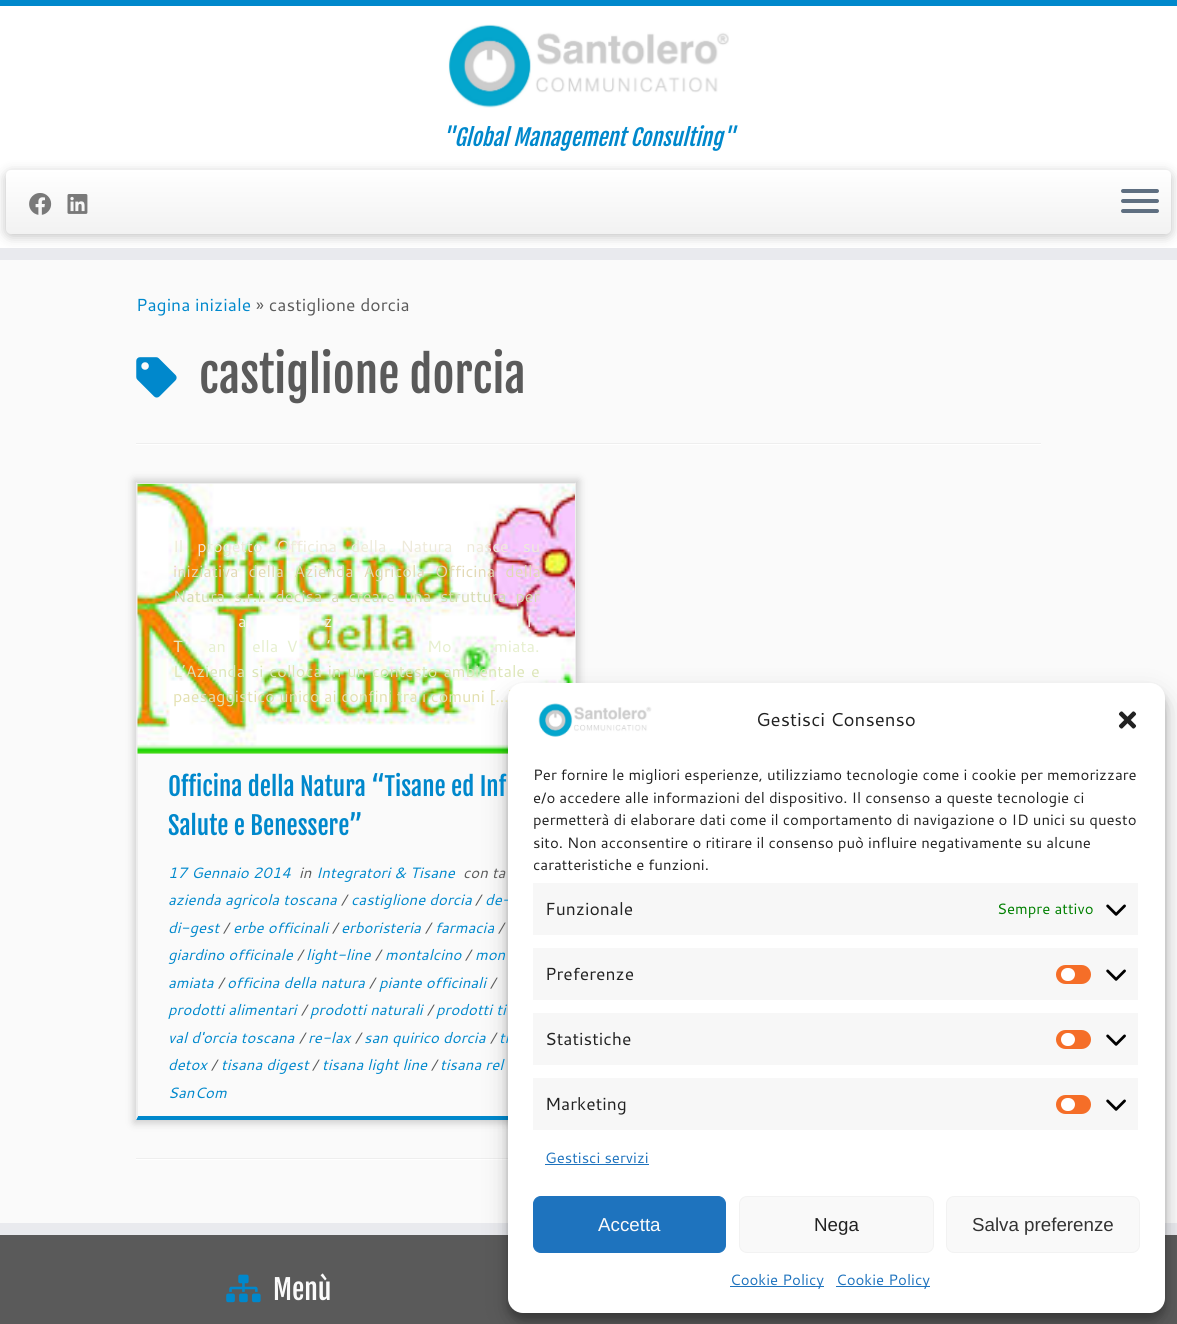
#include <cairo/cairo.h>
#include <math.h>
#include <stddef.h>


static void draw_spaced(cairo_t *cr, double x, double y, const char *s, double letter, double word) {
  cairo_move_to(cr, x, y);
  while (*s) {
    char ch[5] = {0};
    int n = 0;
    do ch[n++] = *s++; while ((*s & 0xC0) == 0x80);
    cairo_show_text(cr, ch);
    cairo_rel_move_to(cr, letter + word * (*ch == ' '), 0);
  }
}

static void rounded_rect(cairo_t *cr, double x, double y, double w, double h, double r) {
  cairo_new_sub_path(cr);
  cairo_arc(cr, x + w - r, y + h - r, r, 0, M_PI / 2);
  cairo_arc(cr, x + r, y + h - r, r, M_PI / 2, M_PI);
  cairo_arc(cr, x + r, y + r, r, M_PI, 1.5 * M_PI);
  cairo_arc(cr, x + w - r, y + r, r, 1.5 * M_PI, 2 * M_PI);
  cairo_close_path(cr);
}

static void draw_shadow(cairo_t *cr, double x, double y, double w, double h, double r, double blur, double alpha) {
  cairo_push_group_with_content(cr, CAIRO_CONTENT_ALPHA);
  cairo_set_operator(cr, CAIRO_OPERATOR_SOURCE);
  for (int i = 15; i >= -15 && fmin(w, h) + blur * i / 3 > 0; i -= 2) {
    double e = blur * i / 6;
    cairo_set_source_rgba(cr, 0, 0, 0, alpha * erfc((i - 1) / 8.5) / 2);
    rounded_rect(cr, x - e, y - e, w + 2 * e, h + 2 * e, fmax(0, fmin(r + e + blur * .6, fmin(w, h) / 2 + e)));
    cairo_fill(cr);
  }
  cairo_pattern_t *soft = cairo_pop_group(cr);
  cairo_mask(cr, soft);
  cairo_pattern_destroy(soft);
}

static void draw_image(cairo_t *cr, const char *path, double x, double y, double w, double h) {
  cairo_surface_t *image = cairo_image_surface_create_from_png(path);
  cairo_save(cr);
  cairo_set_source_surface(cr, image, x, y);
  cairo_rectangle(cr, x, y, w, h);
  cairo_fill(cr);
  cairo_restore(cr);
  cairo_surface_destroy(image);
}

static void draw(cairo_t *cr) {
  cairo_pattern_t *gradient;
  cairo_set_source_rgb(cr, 250 / 255.0, 250 / 255.0, 250 / 255.0);
  cairo_paint(cr);
  cairo_set_source_rgb(cr, 1, 1, 1);
  cairo_rectangle(cr, 0, 6, 1177, 242);
  cairo_fill(cr);
  cairo_set_source_rgb(cr, 0, 136 / 255.0, 204 / 255.0);
  cairo_rectangle(cr, 0, 0, 1177, 6);
  cairo_fill(cr);
  cairo_set_source_rgb(cr, 233 / 255.0, 234 / 255.0, 238 / 255.0);
  cairo_rectangle(cr, 0, 248, 1177, 12);
  cairo_fill(cr);
  draw_image(cr, "images/1.png", 448, 24, 281, 84);
  cairo_set_source_rgb(cr, 0, 0, 0);
  draw_shadow(cr, 6, 173, 1165, 63, 5, 6, 0.25);
  gradient = cairo_pattern_create_linear(589, 170, 589, 234);
  cairo_pattern_add_color_stop_rgba(gradient, 0, 1, 1, 1, 1);
  cairo_pattern_add_color_stop_rgba(gradient, 1, 242 / 255.0, 242 / 255.0, 242 / 255.0, 1);
  cairo_set_source(cr, gradient);
  cairo_pattern_destroy(gradient);
  rounded_rect(cr, 6, 170, 1165, 64, 5);
  cairo_fill(cr);
  draw_image(cr, "images/2.png", 29, 193, 23, 22);
  draw_image(cr, "images/3.png", 67, 194, 21, 20);
  cairo_set_source_rgb(cr, 95 / 255.0, 111 / 255.0, 129 / 255.0);
  rounded_rect(cr, 1121, 189, 38, 4, 2);
  cairo_fill(cr);
  rounded_rect(cr, 1121, 199, 38, 4, 2);
  cairo_fill(cr);
  rounded_rect(cr, 1121, 209, 38, 4, 2);
  cairo_fill(cr);
  draw_image(cr, "images/4.png", 136, 357, 41, 41);
  cairo_set_source_rgb(cr, 238 / 255.0, 238 / 255.0, 238 / 255.0);
  cairo_rectangle(cr, 136, 443, 905, 1);
  cairo_fill(cr);
  cairo_set_source_rgb(cr, 1, 1, 1);
  cairo_rectangle(cr, 136, 444, 905, 1);
  cairo_fill(cr);
  cairo_save(cr);
  cairo_set_fill_rule(cr, CAIRO_FILL_RULE_EVEN_ODD);
  cairo_new_path(cr);
  cairo_move_to(cr, 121, 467);
  cairo_line_to(cr, 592, 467);
  cairo_line_to(cr, 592, 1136);
  cairo_line_to(cr, 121, 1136);
  cairo_close_path(cr);
  cairo_move_to(cr, 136, 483);
  cairo_line_to(cr, 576, 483);
  cairo_line_to(cr, 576, 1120);
  cairo_line_to(cr, 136, 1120);
  cairo_close_path(cr);
  cairo_clip(cr);
  cairo_set_source_rgb(cr, 204 / 255.0, 204 / 255.0, 204 / 255.0);
  draw_shadow(cr, 134, 480, 445, 643, 0, 4, 1);
  cairo_restore(cr);
  cairo_set_source_rgb(cr, 238 / 255.0, 238 / 255.0, 238 / 255.0);
  cairo_rectangle(cr, 136, 483, 440, 1);
  cairo_fill(cr);
  cairo_new_path(cr);
  cairo_move_to(cr, 576, 482);
  cairo_line_to(cr, 576, 1120);
  cairo_line_to(cr, 575, 1116);
  cairo_line_to(cr, 575, 484);
  cairo_close_path(cr);
  cairo_fill(cr);
  cairo_set_source_rgb(cr, 0, 136 / 255.0, 204 / 255.0);
  cairo_new_path(cr);
  cairo_move_to(cr, 576, 1120);
  cairo_line_to(cr, 136, 1120);
  cairo_line_to(cr, 138, 1116);
  cairo_line_to(cr, 575, 1116);
  cairo_close_path(cr);
  cairo_fill(cr);
  cairo_set_source_rgb(cr, 238 / 255.0, 238 / 255.0, 238 / 255.0);
  cairo_new_path(cr);
  cairo_move_to(cr, 136, 1120);
  cairo_line_to(cr, 136, 482);
  cairo_line_to(cr, 138, 484);
  cairo_line_to(cr, 138, 1116);
  cairo_close_path(cr);
  cairo_fill(cr);
  draw_image(cr, "images/5.png", 137, 483, 438, 271);
  cairo_rectangle(cr, 136, 1158, 372, 1);
  cairo_fill(cr);
  cairo_set_source_rgb(cr, 1, 1, 1);
  cairo_rectangle(cr, 136, 1159, 372, 1);
  cairo_fill(cr);
  cairo_set_source_rgb(cr, 90 / 255.0, 90 / 255.0, 90 / 255.0);
  cairo_rectangle(cr, 0, 1235, 1177, 89);
  cairo_fill(cr);
  cairo_set_source_rgb(cr, 233 / 255.0, 234 / 255.0, 238 / 255.0);
  cairo_rectangle(cr, 0, 1223, 1177, 12);
  cairo_fill(cr);
  draw_image(cr, "images/6.png", 226, 1274, 35, 29);
  cairo_set_source_rgb(cr, 0, 0, 0);
  draw_shadow(cr, 508, 690, 657, 630, 15, 4, 0.23);
  draw_shadow(cr, 508, 695, 657, 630, 15, 12.5, 0.19);
  cairo_select_font_face(cr, "Fjalla One", CAIRO_FONT_SLANT_ITALIC, CAIRO_FONT_WEIGHT_NORMAL);
  cairo_set_font_size(cr, 22.5);
  cairo_set_source_rgb(cr, 0, 136 / 255.0, 204 / 255.0);
  cairo_move_to(cr, 442, 146);
  cairo_show_text(cr, "\"Global Management Consulting\"");
  cairo_select_font_face(cr, "Cantarell", CAIRO_FONT_SLANT_NORMAL, CAIRO_FONT_WEIGHT_NORMAL);
  cairo_set_font_size(cr, 17.5);
  cairo_move_to(cr, 136, 311);
  cairo_show_text(cr, "Pagina iniziale");
  cairo_set_source_rgb(cr, 90 / 255.0, 90 / 255.0, 90 / 255.0);
  cairo_move_to(cr, 256, 311);
  cairo_show_text(cr, "» castiglione dorcia");
  cairo_select_font_face(cr, "Fjalla One", CAIRO_FONT_SLANT_NORMAL, CAIRO_FONT_WEIGHT_NORMAL);
  cairo_set_font_size(cr, 47.5);
  cairo_move_to(cr, 199, 393);
  cairo_show_text(cr, "castiglione dorcia");
  cairo_select_font_face(cr, "Cantarell", CAIRO_FONT_SLANT_NORMAL, CAIRO_FONT_WEIGHT_NORMAL);
  cairo_set_font_size(cr, 16.25);
  cairo_set_source_rgb(cr, 238 / 255.0, 234 / 255.0, 218 / 255.0);
  draw_spaced(cr, 173, 552, "Il progetto Officina della Natura nasce su", 0, 9.5);
  cairo_set_source_rgb(cr, 226 / 255.0, 217 / 255.0, 180 / 255.0);
  draw_spaced(cr, 173, 577, "iniziativa della Azienda Agricola Officina della", 0, 5.5);
  cairo_set_source_rgb(cr, 215 / 255.0, 220 / 255.0, 179 / 255.0);
  draw_spaced(cr, 173, 602, "Natura s.r.l. decisa a creare una struttura per", 0, 4.5);
  cairo_set_source_rgb(cr, 244 / 255.0, 242 / 255.0, 231 / 255.0);
  draw_spaced(cr, 238, 627, "a", 0, 2);
  draw_spaced(cr, 324, 627, "z", 0, 2);
  draw_spaced(cr, 527, 627, "l", 0, 2);
  cairo_set_source_rgb(cr, 230 / 255.0, 239 / 255.0, 206 / 255.0);
  draw_spaced(cr, 173, 652, "T", 0, 4);
  draw_spaced(cr, 208, 652, "an", 0, 4);
  draw_spaced(cr, 252, 652, "ella V", 0, 4);
  draw_spaced(cr, 327, 652, "’", 0, 4);
  draw_spaced(cr, 427, 652, "Mo", 0, 4);
  draw_spaced(cr, 494, 652, "miata.", 0, 4);
  cairo_set_source_rgb(cr, 220 / 255.0, 229 / 255.0, 182 / 255.0);
  draw_spaced(cr, 173, 677, "L’Azienda si colloca in un contesto ambientale e", 0, 1.5);
  cairo_set_source_rgb(cr, 227 / 255.0, 224 / 255.0, 175 / 255.0);
  cairo_move_to(cr, 173, 702);
  cairo_show_text(cr, "paesaggistico unico ai confini tra i comuni […]");
  cairo_select_font_face(cr, "Fjalla One", CAIRO_FONT_SLANT_NORMAL, CAIRO_FONT_WEIGHT_NORMAL);
  cairo_set_font_size(cr, 25);
  cairo_set_source_rgb(cr, 0, 136 / 255.0, 204 / 255.0);
  cairo_move_to(cr, 168, 796);
  cairo_show_text(cr, "Officina della Natura “Tisane ed Inf");
  cairo_move_to(cr, 168, 835);
  cairo_show_text(cr, "Salute e Benessere”");
  cairo_select_font_face(cr, "Cantarell", CAIRO_FONT_SLANT_ITALIC, CAIRO_FONT_WEIGHT_NORMAL);
  cairo_set_font_size(cr, 15);
  cairo_move_to(cr, 168, 878);
  cairo_show_text(cr, "17 Gennaio 2014");
  cairo_set_source_rgb(cr, 90 / 255.0, 90 / 255.0, 90 / 255.0);
  cairo_move_to(cr, 299, 878);
  cairo_show_text(cr, "in");
  cairo_set_source_rgb(cr, 0, 136 / 255.0, 204 / 255.0);
  cairo_move_to(cr, 316, 878);
  cairo_show_text(cr, "Integratori & Tisane");
  cairo_set_source_rgb(cr, 90 / 255.0, 90 / 255.0, 90 / 255.0);
  cairo_move_to(cr, 463, 878);
  cairo_show_text(cr, "con ta");
  cairo_set_source_rgb(cr, 0, 136 / 255.0, 204 / 255.0);
  cairo_move_to(cr, 168, 905);
  cairo_show_text(cr, "azienda agricola toscana");
  cairo_set_source_rgb(cr, 90 / 255.0, 90 / 255.0, 90 / 255.0);
  cairo_move_to(cr, 341, 905);
  cairo_show_text(cr, "/");
  cairo_set_source_rgb(cr, 0, 136 / 255.0, 204 / 255.0);
  cairo_move_to(cr, 351, 905);
  cairo_show_text(cr, "castiglione dorcia");
  cairo_set_source_rgb(cr, 90 / 255.0, 90 / 255.0, 90 / 255.0);
  cairo_move_to(cr, 475, 905);
  cairo_show_text(cr, "/");
  cairo_set_source_rgb(cr, 0, 136 / 255.0, 204 / 255.0);
  cairo_move_to(cr, 485, 905);
  cairo_show_text(cr, "de-");
  cairo_move_to(cr, 168, 933);
  cairo_show_text(cr, "di-gest");
  cairo_set_source_rgb(cr, 90 / 255.0, 90 / 255.0, 90 / 255.0);
  cairo_move_to(cr, 223, 933);
  cairo_show_text(cr, "/");
  cairo_set_source_rgb(cr, 0, 136 / 255.0, 204 / 255.0);
  cairo_move_to(cr, 233, 933);
  cairo_show_text(cr, "erbe officinali");
  cairo_set_source_rgb(cr, 90 / 255.0, 90 / 255.0, 90 / 255.0);
  cairo_move_to(cr, 332, 933);
  cairo_show_text(cr, "/");
  cairo_set_source_rgb(cr, 0, 136 / 255.0, 204 / 255.0);
  cairo_move_to(cr, 341, 933);
  cairo_show_text(cr, "erboristeria");
  cairo_set_source_rgb(cr, 90 / 255.0, 90 / 255.0, 90 / 255.0);
  cairo_move_to(cr, 425, 933);
  cairo_show_text(cr, "/");
  cairo_set_source_rgb(cr, 0, 136 / 255.0, 204 / 255.0);
  cairo_move_to(cr, 435, 933);
  cairo_show_text(cr, "farmacia");
  cairo_set_source_rgb(cr, 90 / 255.0, 90 / 255.0, 90 / 255.0);
  cairo_move_to(cr, 498, 933);
  cairo_show_text(cr, "/");
  cairo_set_source_rgb(cr, 0, 136 / 255.0, 204 / 255.0);
  cairo_move_to(cr, 168, 960);
  cairo_show_text(cr, "giardino officinale");
  cairo_set_source_rgb(cr, 90 / 255.0, 90 / 255.0, 90 / 255.0);
  cairo_move_to(cr, 297, 960);
  cairo_show_text(cr, "/");
  cairo_set_source_rgb(cr, 0, 136 / 255.0, 204 / 255.0);
  cairo_move_to(cr, 306, 960);
  cairo_show_text(cr, "light-line");
  cairo_set_source_rgb(cr, 90 / 255.0, 90 / 255.0, 90 / 255.0);
  cairo_move_to(cr, 375, 960);
  cairo_show_text(cr, "/");
  cairo_set_source_rgb(cr, 0, 136 / 255.0, 204 / 255.0);
  cairo_move_to(cr, 385, 960);
  cairo_show_text(cr, "montalcino");
  cairo_set_source_rgb(cr, 90 / 255.0, 90 / 255.0, 90 / 255.0);
  cairo_move_to(cr, 465, 960);
  cairo_show_text(cr, "/");
  cairo_set_source_rgb(cr, 0, 136 / 255.0, 204 / 255.0);
  cairo_move_to(cr, 475, 960);
  cairo_show_text(cr, "mon");
  cairo_move_to(cr, 168, 988);
  cairo_show_text(cr, "amiata");
  cairo_set_source_rgb(cr, 90 / 255.0, 90 / 255.0, 90 / 255.0);
  cairo_move_to(cr, 218, 988);
  cairo_show_text(cr, "/");
  cairo_set_source_rgb(cr, 0, 136 / 255.0, 204 / 255.0);
  cairo_move_to(cr, 227, 988);
  cairo_show_text(cr, "officina della natura");
  cairo_set_source_rgb(cr, 90 / 255.0, 90 / 255.0, 90 / 255.0);
  cairo_move_to(cr, 369, 988);
  cairo_show_text(cr, "/");
  cairo_set_source_rgb(cr, 0, 136 / 255.0, 204 / 255.0);
  cairo_move_to(cr, 379, 988);
  cairo_show_text(cr, "piante officinali");
  cairo_set_source_rgb(cr, 90 / 255.0, 90 / 255.0, 90 / 255.0);
  cairo_move_to(cr, 490, 988);
  cairo_show_text(cr, "/");
  cairo_set_source_rgb(cr, 0, 136 / 255.0, 204 / 255.0);
  cairo_move_to(cr, 168, 1015);
  cairo_show_text(cr, "prodotti alimentari");
  cairo_set_source_rgb(cr, 90 / 255.0, 90 / 255.0, 90 / 255.0);
  cairo_move_to(cr, 301, 1015);
  cairo_show_text(cr, "/");
  cairo_set_source_rgb(cr, 0, 136 / 255.0, 204 / 255.0);
  cairo_move_to(cr, 310, 1015);
  cairo_show_text(cr, "prodotti naturali");
  cairo_set_source_rgb(cr, 90 / 255.0, 90 / 255.0, 90 / 255.0);
  cairo_move_to(cr, 427, 1015);
  cairo_show_text(cr, "/");
  cairo_set_source_rgb(cr, 0, 136 / 255.0, 204 / 255.0);
  cairo_move_to(cr, 436, 1015);
  cairo_show_text(cr, "prodotti ti");
  cairo_move_to(cr, 168, 1043);
  cairo_show_text(cr, "val d'orcia toscana");
  cairo_set_source_rgb(cr, 90 / 255.0, 90 / 255.0, 90 / 255.0);
  cairo_move_to(cr, 299, 1043);
  cairo_show_text(cr, "/");
  cairo_set_source_rgb(cr, 0, 136 / 255.0, 204 / 255.0);
  cairo_move_to(cr, 308, 1043);
  cairo_show_text(cr, "re-lax");
  cairo_set_source_rgb(cr, 90 / 255.0, 90 / 255.0, 90 / 255.0);
  cairo_move_to(cr, 355, 1043);
  cairo_show_text(cr, "/");
  cairo_set_source_rgb(cr, 0, 136 / 255.0, 204 / 255.0);
  cairo_move_to(cr, 364, 1043);
  cairo_show_text(cr, "san quirico dorcia");
  cairo_set_source_rgb(cr, 90 / 255.0, 90 / 255.0, 90 / 255.0);
  cairo_move_to(cr, 490, 1043);
  cairo_show_text(cr, "/");
  cairo_set_source_rgb(cr, 0, 136 / 255.0, 204 / 255.0);
  cairo_move_to(cr, 499, 1043);
  cairo_show_text(cr, "ti");
  cairo_move_to(cr, 168, 1070);
  cairo_show_text(cr, "detox");
  cairo_set_source_rgb(cr, 90 / 255.0, 90 / 255.0, 90 / 255.0);
  cairo_move_to(cr, 211, 1070);
  cairo_show_text(cr, "/");
  cairo_set_source_rgb(cr, 0, 136 / 255.0, 204 / 255.0);
  cairo_move_to(cr, 221, 1070);
  cairo_show_text(cr, "tisana digest");
  cairo_set_source_rgb(cr, 90 / 255.0, 90 / 255.0, 90 / 255.0);
  cairo_move_to(cr, 312, 1070);
  cairo_show_text(cr, "/");
  cairo_set_source_rgb(cr, 0, 136 / 255.0, 204 / 255.0);
  cairo_move_to(cr, 322, 1070);
  cairo_show_text(cr, "tisana light line");
  cairo_set_source_rgb(cr, 90 / 255.0, 90 / 255.0, 90 / 255.0);
  cairo_move_to(cr, 431, 1070);
  cairo_show_text(cr, "/");
  cairo_set_source_rgb(cr, 0, 136 / 255.0, 204 / 255.0);
  cairo_move_to(cr, 440, 1070);
  cairo_show_text(cr, "tisana rel");
  cairo_move_to(cr, 168, 1098);
  cairo_show_text(cr, "SanCom");
  cairo_select_font_face(cr, "Fjalla One", CAIRO_FONT_SLANT_NORMAL, CAIRO_FONT_WEIGHT_NORMAL);
  cairo_set_font_size(cr, 27.5);
  cairo_set_source_rgb(cr, 250 / 255.0, 250 / 255.0, 250 / 255.0);
  cairo_move_to(cr, 273, 1300);
  cairo_show_text(cr, "Menù");
  cairo_set_source_rgb(cr, 1, 1, 1);
  rounded_rect(cr, 508, 683, 657, 630, 15);
  cairo_fill(cr);
  draw_image(cr, "images/7.png", 538, 703, 114, 34);
  cairo_select_font_face(cr, "Cantarell", CAIRO_FONT_SLANT_NORMAL, CAIRO_FONT_WEIGHT_NORMAL);
  cairo_set_font_size(cr, 18.75);
  cairo_set_source_rgb(cr, 34 / 255.0, 34 / 255.0, 34 / 255.0);
  cairo_move_to(cr, 756, 726);
  cairo_show_text(cr, "Gestisci Consenso");
  draw_image(cr, "images/8.png", 1118, 711, 19, 18);
  cairo_set_font_size(cr, 15);
  cairo_move_to(cr, 533, 780);
  cairo_show_text(cr, "Per fornire le migliori esperienze, utilizziamo tecnologie come i cookie per memorizzare");
  cairo_move_to(cr, 533, 803);
  cairo_show_text(cr, "e/o accedere alle informazioni del dispositivo. Il consenso a queste tecnologie ci");
  cairo_move_to(cr, 533, 825);
  cairo_show_text(cr, "permetterà di elaborare dati come il comportamento di navigazione o ID unici su questo");
  cairo_move_to(cr, 533, 848);
  cairo_show_text(cr, "sito. Non acconsentire o ritirare il consenso può influire negativamente su alcune");
  cairo_move_to(cr, 533, 870);
  cairo_show_text(cr, "caratteristiche e funzioni.");
  cairo_set_source_rgb(cr, 247 / 255.0, 247 / 255.0, 247 / 255.0);
  cairo_rectangle(cr, 533, 883, 605, 52);
  cairo_fill(cr);
  cairo_set_font_size(cr, 17.5);
  cairo_set_source_rgb(cr, 34 / 255.0, 34 / 255.0, 34 / 255.0);
  cairo_move_to(cr, 545, 915);
  cairo_show_text(cr, "Funzionale");
  cairo_set_font_size(cr, 15);
  cairo_set_source_rgb(cr, 0, 128 / 255.0, 0);
  cairo_move_to(cr, 997, 914);
  cairo_show_text(cr, "Sempre attivo");
  draw_image(cr, "images/9.png", 1106, 904, 20, 12);
  cairo_set_source_rgb(cr, 247 / 255.0, 247 / 255.0, 247 / 255.0);
  cairo_rectangle(cr, 533, 948, 605, 52);
  cairo_fill(cr);
  cairo_set_font_size(cr, 17.5);
  cairo_set_source_rgb(cr, 34 / 255.0, 34 / 255.0, 34 / 255.0);
  cairo_move_to(cr, 545, 980);
  cairo_show_text(cr, "Preferenze");
  cairo_set_source_rgb(cr, 245 / 255.0, 110 / 255.0, 40 / 255.0);
  rounded_rect(cr, 1056, 965, 35, 19, 9.5);
  cairo_fill(cr);
  cairo_set_source_rgb(cr, 1, 1, 1);
  rounded_rect(cr, 1061, 968, 14, 13, 6.5);
  cairo_fill(cr);
  draw_image(cr, "images/9.png", 1106, 969, 20, 12);
  cairo_set_source_rgb(cr, 247 / 255.0, 247 / 255.0, 247 / 255.0);
  cairo_rectangle(cr, 533, 1013, 605, 52);
  cairo_fill(cr);
  cairo_set_source_rgb(cr, 34 / 255.0, 34 / 255.0, 34 / 255.0);
  cairo_move_to(cr, 545, 1045);
  cairo_show_text(cr, "Statistiche");
  cairo_set_source_rgb(cr, 245 / 255.0, 110 / 255.0, 40 / 255.0);
  rounded_rect(cr, 1056, 1030, 35, 19, 9.5);
  cairo_fill(cr);
  cairo_set_source_rgb(cr, 1, 1, 1);
  rounded_rect(cr, 1061, 1033, 14, 13, 6.5);
  cairo_fill(cr);
  draw_image(cr, "images/9.png", 1106, 1034, 20, 12);
  cairo_set_source_rgb(cr, 247 / 255.0, 247 / 255.0, 247 / 255.0);
  cairo_rectangle(cr, 533, 1078, 605, 52);
  cairo_fill(cr);
  cairo_set_source_rgb(cr, 34 / 255.0, 34 / 255.0, 34 / 255.0);
  cairo_move_to(cr, 545, 1110);
  cairo_show_text(cr, "Marketing");
  cairo_set_source_rgb(cr, 245 / 255.0, 110 / 255.0, 40 / 255.0);
  rounded_rect(cr, 1056, 1095, 35, 19, 9.5);
  cairo_fill(cr);
  cairo_set_source_rgb(cr, 1, 1, 1);
  rounded_rect(cr, 1061, 1098, 14, 13, 6.5);
  cairo_fill(cr);
  draw_image(cr, "images/9.png", 1106, 1099, 20, 12);
  cairo_set_font_size(cr, 15);
  cairo_set_source_rgb(cr, 30 / 255.0, 115 / 255.0, 190 / 255.0);
  cairo_move_to(cr, 545, 1163);
  cairo_show_text(cr, "Gestisci servizi");
  cairo_rectangle(cr, 545, 1164, 104, 1);
  cairo_fill(cr);
  rounded_rect(cr, 533.5, 1196.5, 192, 56, 7.5);
  cairo_fill_preserve(cr);
  cairo_set_line_width(cr, 1);
  cairo_stroke(cr);
  cairo_select_font_face(cr, "Liberation Sans", CAIRO_FONT_SLANT_NORMAL, CAIRO_FONT_WEIGHT_NORMAL);
  cairo_set_font_size(cr, 18.75);
  cairo_set_source_rgb(cr, 250 / 255.0, 250 / 255.0, 250 / 255.0);
  cairo_move_to(cr, 598, 1231);
  cairo_show_text(cr, "Accetta");
  cairo_set_source_rgb(cr, 249 / 255.0, 249 / 255.0, 249 / 255.0);
  rounded_rect(cr, 739.5, 1196.5, 194, 56, 7.5);
  cairo_fill_preserve(cr);
  cairo_set_source_rgb(cr, 242 / 255.0, 242 / 255.0, 242 / 255.0);
  cairo_stroke(cr);
  cairo_set_source_rgb(cr, 34 / 255.0, 34 / 255.0, 34 / 255.0);
  cairo_move_to(cr, 814, 1231);
  cairo_show_text(cr, "Nega");
  cairo_set_source_rgb(cr, 249 / 255.0, 249 / 255.0, 249 / 255.0);
  rounded_rect(cr, 946.5, 1196.5, 193, 56, 7.5);
  cairo_fill_preserve(cr);
  cairo_set_source_rgb(cr, 242 / 255.0, 242 / 255.0, 242 / 255.0);
  cairo_stroke(cr);
  cairo_set_source_rgb(cr, 51 / 255.0, 51 / 255.0, 51 / 255.0);
  cairo_move_to(cr, 972, 1231);
  cairo_show_text(cr, "Salva preferenze");
  cairo_set_source_rgb(cr, 30 / 255.0, 115 / 255.0, 190 / 255.0);
  cairo_rectangle(cr, 730, 1286, 94, 1);
  cairo_fill(cr);
  cairo_select_font_face(cr, "Cantarell", CAIRO_FONT_SLANT_NORMAL, CAIRO_FONT_WEIGHT_NORMAL);
  cairo_set_font_size(cr, 15);
  cairo_move_to(cr, 730, 1285);
  cairo_show_text(cr, "Cookie Policy");
  cairo_rectangle(cr, 836, 1286, 94, 1);
  cairo_fill(cr);
  cairo_move_to(cr, 836, 1285);
  cairo_show_text(cr, "Cookie Policy");
}

int main(void) {
  cairo_surface_t *surface = cairo_image_surface_create(CAIRO_FORMAT_RGB24, 1177, 1324);
  cairo_t *cr = cairo_create(surface);
  cairo_font_options_t *options = cairo_font_options_create();
  cairo_font_options_set_hint_metrics(options, CAIRO_HINT_METRICS_OFF);
  cairo_font_options_set_hint_style(options, CAIRO_HINT_STYLE_NONE);
  cairo_set_font_options(cr, options);
  cairo_set_miter_limit(cr, 4);
  draw(cr);
  cairo_surface_write_to_png(surface, "out.png");
  cairo_font_options_destroy(options);
  cairo_destroy(cr);
  cairo_surface_destroy(surface);
  return 0;
}
